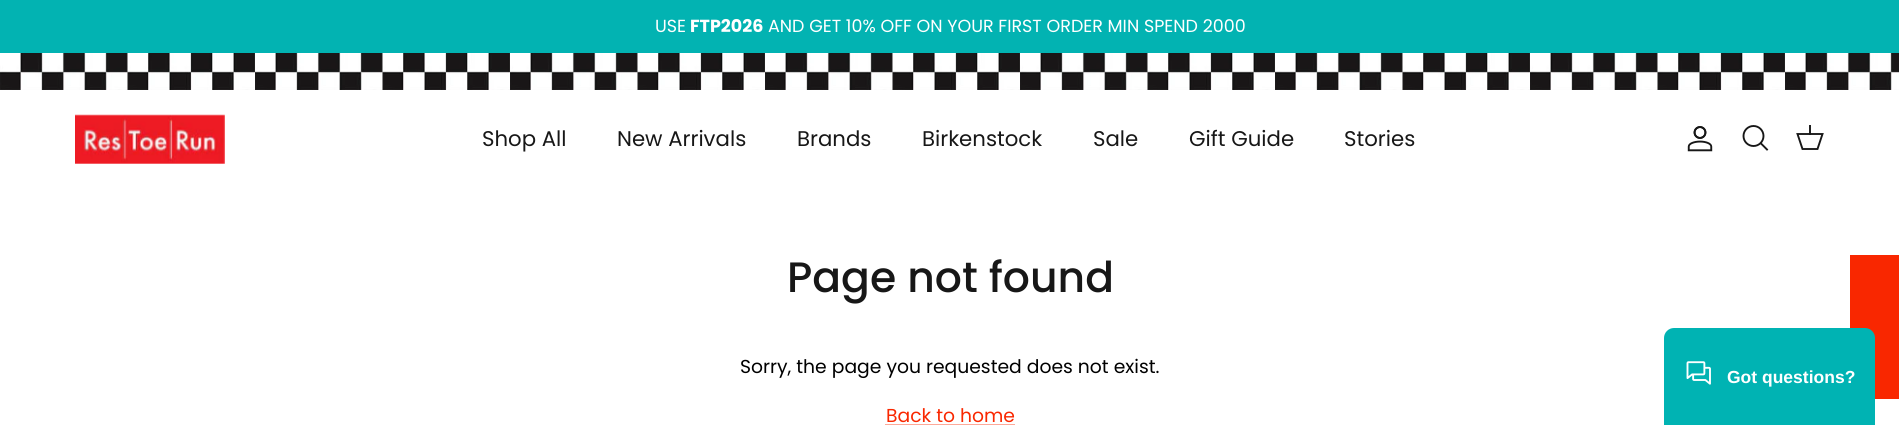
#include <cairo/cairo.h>
#include <math.h>
#include <stddef.h>


static void draw_image(cairo_t *cr, const char *path, double x, double y, double w, double h) {
  cairo_surface_t *image = cairo_image_surface_create_from_png(path);
  cairo_save(cr);
  cairo_set_source_surface(cr, image, x, y);
  cairo_rectangle(cr, x, y, w, h);
  cairo_fill(cr);
  cairo_restore(cr);
  cairo_surface_destroy(image);
}

static void draw(cairo_t *cr) {
  cairo_set_source_rgb(cr, 1, 1, 1);
  cairo_paint(cr);
  cairo_set_source_rgb(cr, 2 / 255.0, 179 / 255.0, 178 / 255.0);
  cairo_rectangle(cr, 0, 0, 1899, 53);
  cairo_fill(cr);
  draw_image(cr, "images/1.png", 0, 53, 1899, 37);
  draw_image(cr, "images/2.png", 75, 114, 150, 50);
  draw_image(cr, "images/3.png", 1687, 126, 26, 26);
  cairo_arc(cr, 1753.5, 136, 10, 0, 2 * M_PI);
  cairo_set_source_rgb(cr, 23 / 255.0, 23 / 255.0, 23 / 255.0);
  cairo_set_line_width(cr, 1.9);
  cairo_stroke(cr);
  cairo_new_path(cr);
  cairo_move_to(cr, 1761, 143.5);
  cairo_line_to(cr, 1767, 149.5);
  cairo_set_line_cap(cr, CAIRO_LINE_CAP_SQUARE);
  cairo_stroke(cr);
  cairo_new_path(cr);
  cairo_move_to(cr, 1797.5, 134);
  cairo_line_to(cr, 1822.5, 134);
  cairo_line_to(cr, 1817.5, 149);
  cairo_line_to(cr, 1802.5, 149);
  cairo_close_path(cr);
  cairo_set_line_cap(cr, CAIRO_LINE_CAP_BUTT);
  cairo_stroke(cr);
  cairo_set_source_rgba(cr, 23 / 255.0, 23 / 255.0, 23 / 255.0, 0.95);
  cairo_rectangle(cr, 1809, 125, 2, 10);
  cairo_fill(cr);
  cairo_set_source_rgb(cr, 253 / 255.0, 169 / 255.0, 153 / 255.0);
  cairo_rectangle(cr, 885, 424, 130, 1);
  cairo_fill(cr);
  cairo_set_source_rgb(cr, 249 / 255.0, 39 / 255.0, 0);
  cairo_rectangle(cr, 1850, 255, 49, 144);
  cairo_fill(cr);
  cairo_set_source_rgb(cr, 0, 179 / 255.0, 179 / 255.0);
  cairo_new_path(cr);
  cairo_move_to(cr, 1674, 328);
  cairo_line_to(cr, 1865, 328);
  cairo_curve_to(cr, 1870.5, 328, 1875, 332.5, 1875, 338);
  cairo_line_to(cr, 1875, 425);
  cairo_line_to(cr, 1664, 425);
  cairo_line_to(cr, 1664, 338);
  cairo_curve_to(cr, 1664, 332.5, 1668.5, 328, 1674, 328);
  cairo_close_path(cr);
  cairo_fill(cr);
  draw_image(cr, "images/4.png", 1686, 361, 25, 24);
  cairo_select_font_face(cr, "Poppins", CAIRO_FONT_SLANT_NORMAL, CAIRO_FONT_WEIGHT_NORMAL);
  cairo_set_font_size(cr, 17.5);
  cairo_set_source_rgb(cr, 1, 1, 1);
  cairo_move_to(cr, 655, 32);
  cairo_show_text(cr, "USE");
  cairo_select_font_face(cr, "Poppins", CAIRO_FONT_SLANT_NORMAL, CAIRO_FONT_WEIGHT_BOLD);
  cairo_move_to(cr, 690, 32);
  cairo_show_text(cr, "FTP2026");
  cairo_select_font_face(cr, "Poppins", CAIRO_FONT_SLANT_NORMAL, CAIRO_FONT_WEIGHT_NORMAL);
  cairo_move_to(cr, 768, 32);
  cairo_show_text(cr, "AND GET 10% OFF ON YOUR FIRST ORDER MIN SPEND 2000");
  cairo_set_font_size(cr, 21.25);
  cairo_set_source_rgb(cr, 23 / 255.0, 23 / 255.0, 23 / 255.0);
  cairo_move_to(cr, 482, 146);
  cairo_show_text(cr, "Shop All");
  cairo_move_to(cr, 617, 146);
  cairo_show_text(cr, "New Arrivals");
  cairo_move_to(cr, 797, 146);
  cairo_show_text(cr, "Brands");
  cairo_move_to(cr, 922, 146);
  cairo_show_text(cr, "Birkenstock");
  cairo_move_to(cr, 1093, 146);
  cairo_show_text(cr, "Sale");
  cairo_move_to(cr, 1189, 146);
  cairo_show_text(cr, "Gift Guide");
  cairo_move_to(cr, 1344, 146);
  cairo_show_text(cr, "Stories");
  cairo_select_font_face(cr, "Poppins Medium", CAIRO_FONT_SLANT_NORMAL, CAIRO_FONT_WEIGHT_NORMAL);
  cairo_set_font_size(cr, 42.5);
  cairo_move_to(cr, 787, 292);
  cairo_show_text(cr, "Page not found");
  cairo_select_font_face(cr, "Poppins", CAIRO_FONT_SLANT_NORMAL, CAIRO_FONT_WEIGHT_NORMAL);
  cairo_set_font_size(cr, 18.75);
  cairo_set_source_rgb(cr, 0, 0, 0);
  cairo_move_to(cr, 740, 373);
  cairo_show_text(cr, "Sorry, the page you requested does not exist.");
  cairo_set_source_rgb(cr, 249 / 255.0, 39 / 255.0, 0);
  cairo_move_to(cr, 886, 422);
  cairo_show_text(cr, "Back to home");
  cairo_select_font_face(cr, "Liberation Sans", CAIRO_FONT_SLANT_NORMAL, CAIRO_FONT_WEIGHT_BOLD);
  cairo_set_font_size(cr, 17.5);
  cairo_set_source_rgb(cr, 1, 1, 1);
  cairo_move_to(cr, 1727, 383);
  cairo_show_text(cr, "Got questions?");
}

int main(void) {
  cairo_surface_t *surface = cairo_image_surface_create(CAIRO_FORMAT_RGB24, 1899, 425);
  cairo_t *cr = cairo_create(surface);
  cairo_font_options_t *options = cairo_font_options_create();
  cairo_font_options_set_hint_metrics(options, CAIRO_HINT_METRICS_OFF);
  cairo_font_options_set_hint_style(options, CAIRO_HINT_STYLE_NONE);
  cairo_set_font_options(cr, options);
  cairo_set_miter_limit(cr, 4);
  draw(cr);
  cairo_surface_write_to_png(surface, "out.png");
  cairo_font_options_destroy(options);
  cairo_destroy(cr);
  cairo_surface_destroy(surface);
  return 0;
}
